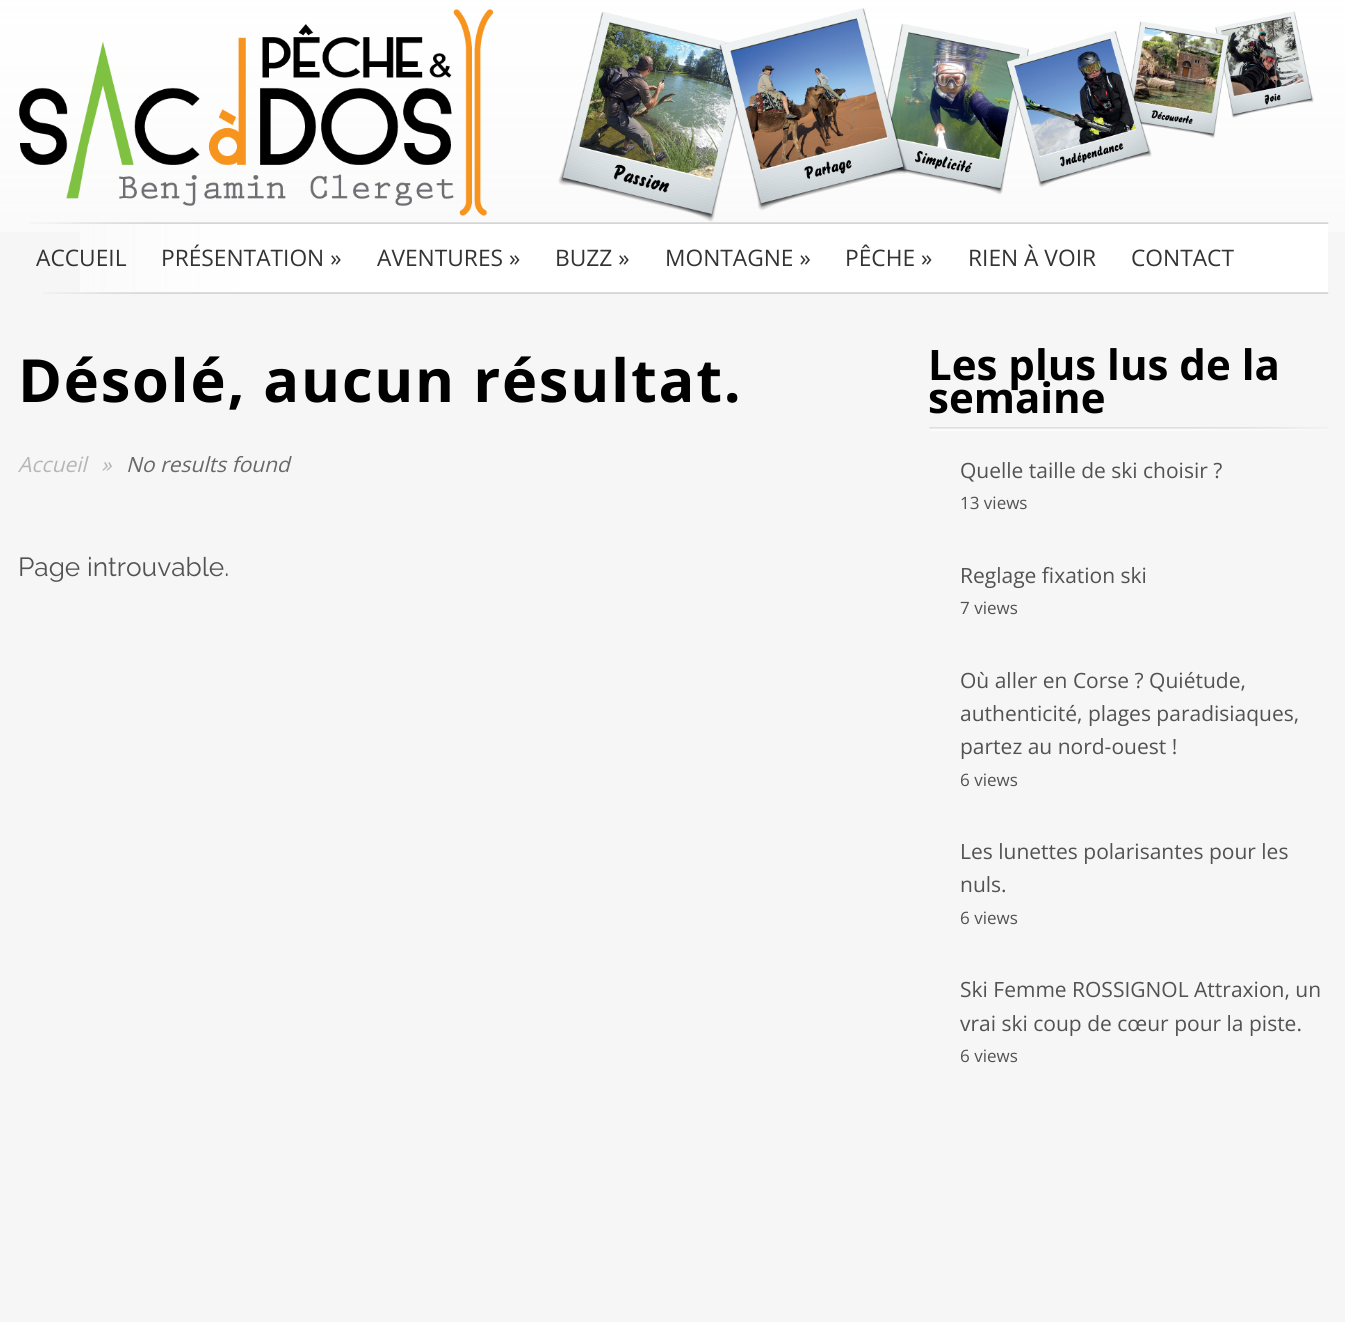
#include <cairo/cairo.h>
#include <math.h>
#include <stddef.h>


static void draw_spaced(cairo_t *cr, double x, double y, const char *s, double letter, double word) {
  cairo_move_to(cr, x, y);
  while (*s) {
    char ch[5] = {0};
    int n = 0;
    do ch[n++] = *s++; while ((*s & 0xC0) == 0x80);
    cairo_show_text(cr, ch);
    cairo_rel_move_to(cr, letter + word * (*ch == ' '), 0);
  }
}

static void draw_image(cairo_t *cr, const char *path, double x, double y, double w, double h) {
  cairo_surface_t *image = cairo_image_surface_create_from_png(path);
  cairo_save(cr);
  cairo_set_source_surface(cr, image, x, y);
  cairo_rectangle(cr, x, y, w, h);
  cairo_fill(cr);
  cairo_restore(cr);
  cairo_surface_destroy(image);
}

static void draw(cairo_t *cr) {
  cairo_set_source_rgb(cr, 246 / 255.0, 246 / 255.0, 246 / 255.0);
  cairo_paint(cr);
  draw_image(cr, "images/1.png", 0, 0, 1345, 232);
  draw_image(cr, "images/2.png", 19, 8, 1295, 214);
  draw_image(cr, "images/3.png", 80, 224, 1248, 68);
  draw_image(cr, "images/4.png", 29, 222, 1300, 2);
  draw_image(cr, "images/5.png", 43, 292, 1286, 2);
  draw_image(cr, "images/6.png", 929, 427, 399, 4);
  cairo_select_font_face(cr, "Open Sans", CAIRO_FONT_SLANT_NORMAL, CAIRO_FONT_WEIGHT_NORMAL);
  cairo_set_font_size(cr, 22.75);
  cairo_set_source_rgb(cr, 51 / 255.0, 51 / 255.0, 51 / 255.0);
  cairo_move_to(cr, 36, 266);
  cairo_show_text(cr, "ACCUEIL");
  cairo_move_to(cr, 161, 266);
  cairo_show_text(cr, "PRÉSENTATION »");
  cairo_move_to(cr, 377, 266);
  cairo_show_text(cr, "AVENTURES »");
  cairo_move_to(cr, 555, 266);
  cairo_show_text(cr, "BUZZ »");
  cairo_move_to(cr, 665, 266);
  cairo_show_text(cr, "MONTAGNE »");
  cairo_move_to(cr, 845, 266);
  cairo_show_text(cr, "PÊCHE »");
  cairo_move_to(cr, 968, 266);
  cairo_show_text(cr, "RIEN À VOIR");
  cairo_move_to(cr, 1131, 266);
  cairo_show_text(cr, "CONTACT");
  cairo_select_font_face(cr, "Open Sans", CAIRO_FONT_SLANT_NORMAL, CAIRO_FONT_WEIGHT_BOLD);
  cairo_set_font_size(cr, 59.5);
  cairo_set_source_rgb(cr, 0, 0, 0);
  draw_spaced(cr, 18, 402, "Désolé, aucun résultat.", 1.75, 0);
  cairo_select_font_face(cr, "Open Sans", CAIRO_FONT_SLANT_ITALIC, CAIRO_FONT_WEIGHT_NORMAL);
  cairo_set_font_size(cr, 21);
  cairo_set_source_rgb(cr, 182 / 255.0, 182 / 255.0, 182 / 255.0);
  cairo_move_to(cr, 18, 472);
  cairo_show_text(cr, "Accueil");
  cairo_move_to(cr, 101, 472);
  cairo_show_text(cr, "»");
  cairo_set_source_rgb(cr, 104 / 255.0, 104 / 255.0, 104 / 255.0);
  cairo_move_to(cr, 126, 472);
  cairo_show_text(cr, "No results found");
  cairo_select_font_face(cr, "Raleway", CAIRO_FONT_SLANT_NORMAL, CAIRO_FONT_WEIGHT_NORMAL);
  cairo_set_font_size(cr, 26.25);
  cairo_set_source_rgb(cr, 82 / 255.0, 82 / 255.0, 82 / 255.0);
  cairo_move_to(cr, 18, 576);
  cairo_show_text(cr, "Page introuvable.");
  cairo_select_font_face(cr, "Open Sans", CAIRO_FONT_SLANT_NORMAL, CAIRO_FONT_WEIGHT_BOLD);
  cairo_set_font_size(cr, 42);
  cairo_set_source_rgb(cr, 0, 0, 0);
  cairo_move_to(cr, 928, 380);
  cairo_show_text(cr, "Les plus lus de la");
  cairo_move_to(cr, 928, 413);
  cairo_show_text(cr, "semaine");
  cairo_select_font_face(cr, "Open Sans", CAIRO_FONT_SLANT_NORMAL, CAIRO_FONT_WEIGHT_NORMAL);
  cairo_set_font_size(cr, 21);
  cairo_set_source_rgb(cr, 82 / 255.0, 82 / 255.0, 82 / 255.0);
  cairo_move_to(cr, 960, 478);
  cairo_show_text(cr, "Quelle taille de ski choisir ?");
  cairo_set_font_size(cr, 17);
  cairo_move_to(cr, 960, 509);
  cairo_show_text(cr, "13 views");
  cairo_set_font_size(cr, 21);
  cairo_move_to(cr, 960, 583);
  cairo_show_text(cr, "Reglage fixation ski");
  cairo_set_font_size(cr, 17);
  cairo_move_to(cr, 960, 614);
  cairo_show_text(cr, "7 views");
  cairo_set_font_size(cr, 21);
  cairo_move_to(cr, 960, 688);
  cairo_show_text(cr, "Où aller en Corse ? Quiétude,");
  cairo_move_to(cr, 960, 721);
  cairo_show_text(cr, "authenticité, plages paradisiaques,");
  cairo_move_to(cr, 960, 754);
  cairo_show_text(cr, "partez au nord-ouest !");
  cairo_set_font_size(cr, 17);
  cairo_move_to(cr, 960, 786);
  cairo_show_text(cr, "6 views");
  cairo_set_font_size(cr, 21);
  cairo_move_to(cr, 960, 859);
  cairo_show_text(cr, "Les lunettes polarisantes pour les");
  cairo_move_to(cr, 960, 892);
  cairo_show_text(cr, "nuls.");
  cairo_set_font_size(cr, 17);
  cairo_move_to(cr, 960, 924);
  cairo_show_text(cr, "6 views");
  cairo_set_font_size(cr, 21);
  cairo_move_to(cr, 960, 997);
  cairo_show_text(cr, "Ski Femme ROSSIGNOL Attraxion, un");
  cairo_move_to(cr, 960, 1031);
  cairo_show_text(cr, "vrai ski coup de cœur pour la piste.");
  cairo_set_font_size(cr, 17);
  cairo_move_to(cr, 960, 1062);
  cairo_show_text(cr, "6 views");
}

int main(void) {
  cairo_surface_t *surface = cairo_image_surface_create(CAIRO_FORMAT_RGB24, 1345, 1322);
  cairo_t *cr = cairo_create(surface);
  cairo_font_options_t *options = cairo_font_options_create();
  cairo_font_options_set_hint_metrics(options, CAIRO_HINT_METRICS_OFF);
  cairo_font_options_set_hint_style(options, CAIRO_HINT_STYLE_NONE);
  cairo_set_font_options(cr, options);
  cairo_set_miter_limit(cr, 4);
  draw(cr);
  cairo_surface_write_to_png(surface, "out.png");
  cairo_font_options_destroy(options);
  cairo_destroy(cr);
  cairo_surface_destroy(surface);
  return 0;
}
